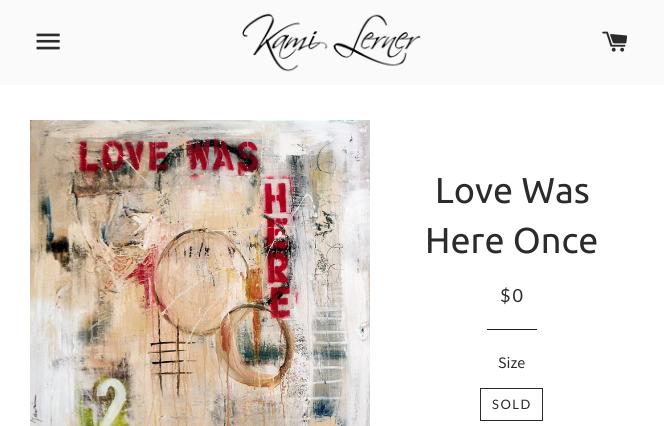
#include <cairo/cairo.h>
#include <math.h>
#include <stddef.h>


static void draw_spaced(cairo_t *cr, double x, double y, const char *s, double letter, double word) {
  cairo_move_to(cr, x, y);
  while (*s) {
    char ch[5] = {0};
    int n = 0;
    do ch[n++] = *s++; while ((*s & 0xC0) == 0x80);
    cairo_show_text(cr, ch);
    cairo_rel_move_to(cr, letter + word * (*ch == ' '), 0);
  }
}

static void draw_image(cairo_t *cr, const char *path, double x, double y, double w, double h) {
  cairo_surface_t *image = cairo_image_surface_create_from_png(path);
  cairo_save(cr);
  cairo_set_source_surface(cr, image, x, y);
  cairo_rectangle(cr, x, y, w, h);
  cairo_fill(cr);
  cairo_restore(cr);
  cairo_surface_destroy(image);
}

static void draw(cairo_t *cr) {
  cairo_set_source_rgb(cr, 1, 1, 1);
  cairo_paint(cr);
  cairo_set_source_rgb(cr, 250 / 255.0, 250 / 255.0, 250 / 255.0);
  cairo_rectangle(cr, 0, 0, 664, 85);
  cairo_fill(cr);
  draw_image(cr, "images/1.png", 36, 33, 24, 17);
  draw_image(cr, "images/2.png", 242, 13, 179, 59);
  draw_image(cr, "images/3.png", 602, 31, 26, 21);
  draw_image(cr, "images/4.png", 30, 120, 340, 306);
  cairo_set_source_rgb(cr, 28 / 255.0, 29 / 255.0, 29 / 255.0);
  cairo_rectangle(cr, 487, 329, 50, 1);
  cairo_fill(cr);
  cairo_rectangle(cr, 480.5, 388.5, 62, 32);
  cairo_set_source_rgb(cr, 43 / 255.0, 43 / 255.0, 43 / 255.0);
  cairo_set_line_width(cr, 1);
  cairo_stroke(cr);
  cairo_select_font_face(cr, "Ubuntu", CAIRO_FONT_SLANT_NORMAL, CAIRO_FONT_WEIGHT_NORMAL);
  cairo_set_font_size(cr, 36);
  cairo_move_to(cr, 435, 203);
  cairo_show_text(cr, "Love Was");
  cairo_move_to(cr, 425, 253);
  cairo_show_text(cr, "Here Once");
  cairo_select_font_face(cr, "Lato", CAIRO_FONT_SLANT_NORMAL, CAIRO_FONT_WEIGHT_NORMAL);
  cairo_set_font_size(cr, 18);
  draw_spaced(cr, 500, 302, "$0", 2, 0);
  cairo_select_font_face(cr, "Source Sans Pro", CAIRO_FONT_SLANT_NORMAL, CAIRO_FONT_WEIGHT_NORMAL);
  cairo_set_font_size(cr, 16);
  cairo_move_to(cr, 498, 368);
  cairo_show_text(cr, "Size");
  cairo_select_font_face(cr, "Lato", CAIRO_FONT_SLANT_NORMAL, CAIRO_FONT_WEIGHT_NORMAL);
  cairo_set_font_size(cr, 13);
  draw_spaced(cr, 492, 409, "SOLD", 1.5, 0);
}

int main(void) {
  cairo_surface_t *surface = cairo_image_surface_create(CAIRO_FORMAT_RGB24, 664, 426);
  cairo_t *cr = cairo_create(surface);
  cairo_font_options_t *options = cairo_font_options_create();
  cairo_font_options_set_hint_metrics(options, CAIRO_HINT_METRICS_OFF);
  cairo_font_options_set_hint_style(options, CAIRO_HINT_STYLE_NONE);
  cairo_set_font_options(cr, options);
  cairo_set_miter_limit(cr, 4);
  draw(cr);
  cairo_surface_write_to_png(surface, "out.png");
  cairo_font_options_destroy(options);
  cairo_destroy(cr);
  cairo_surface_destroy(surface);
  return 0;
}
